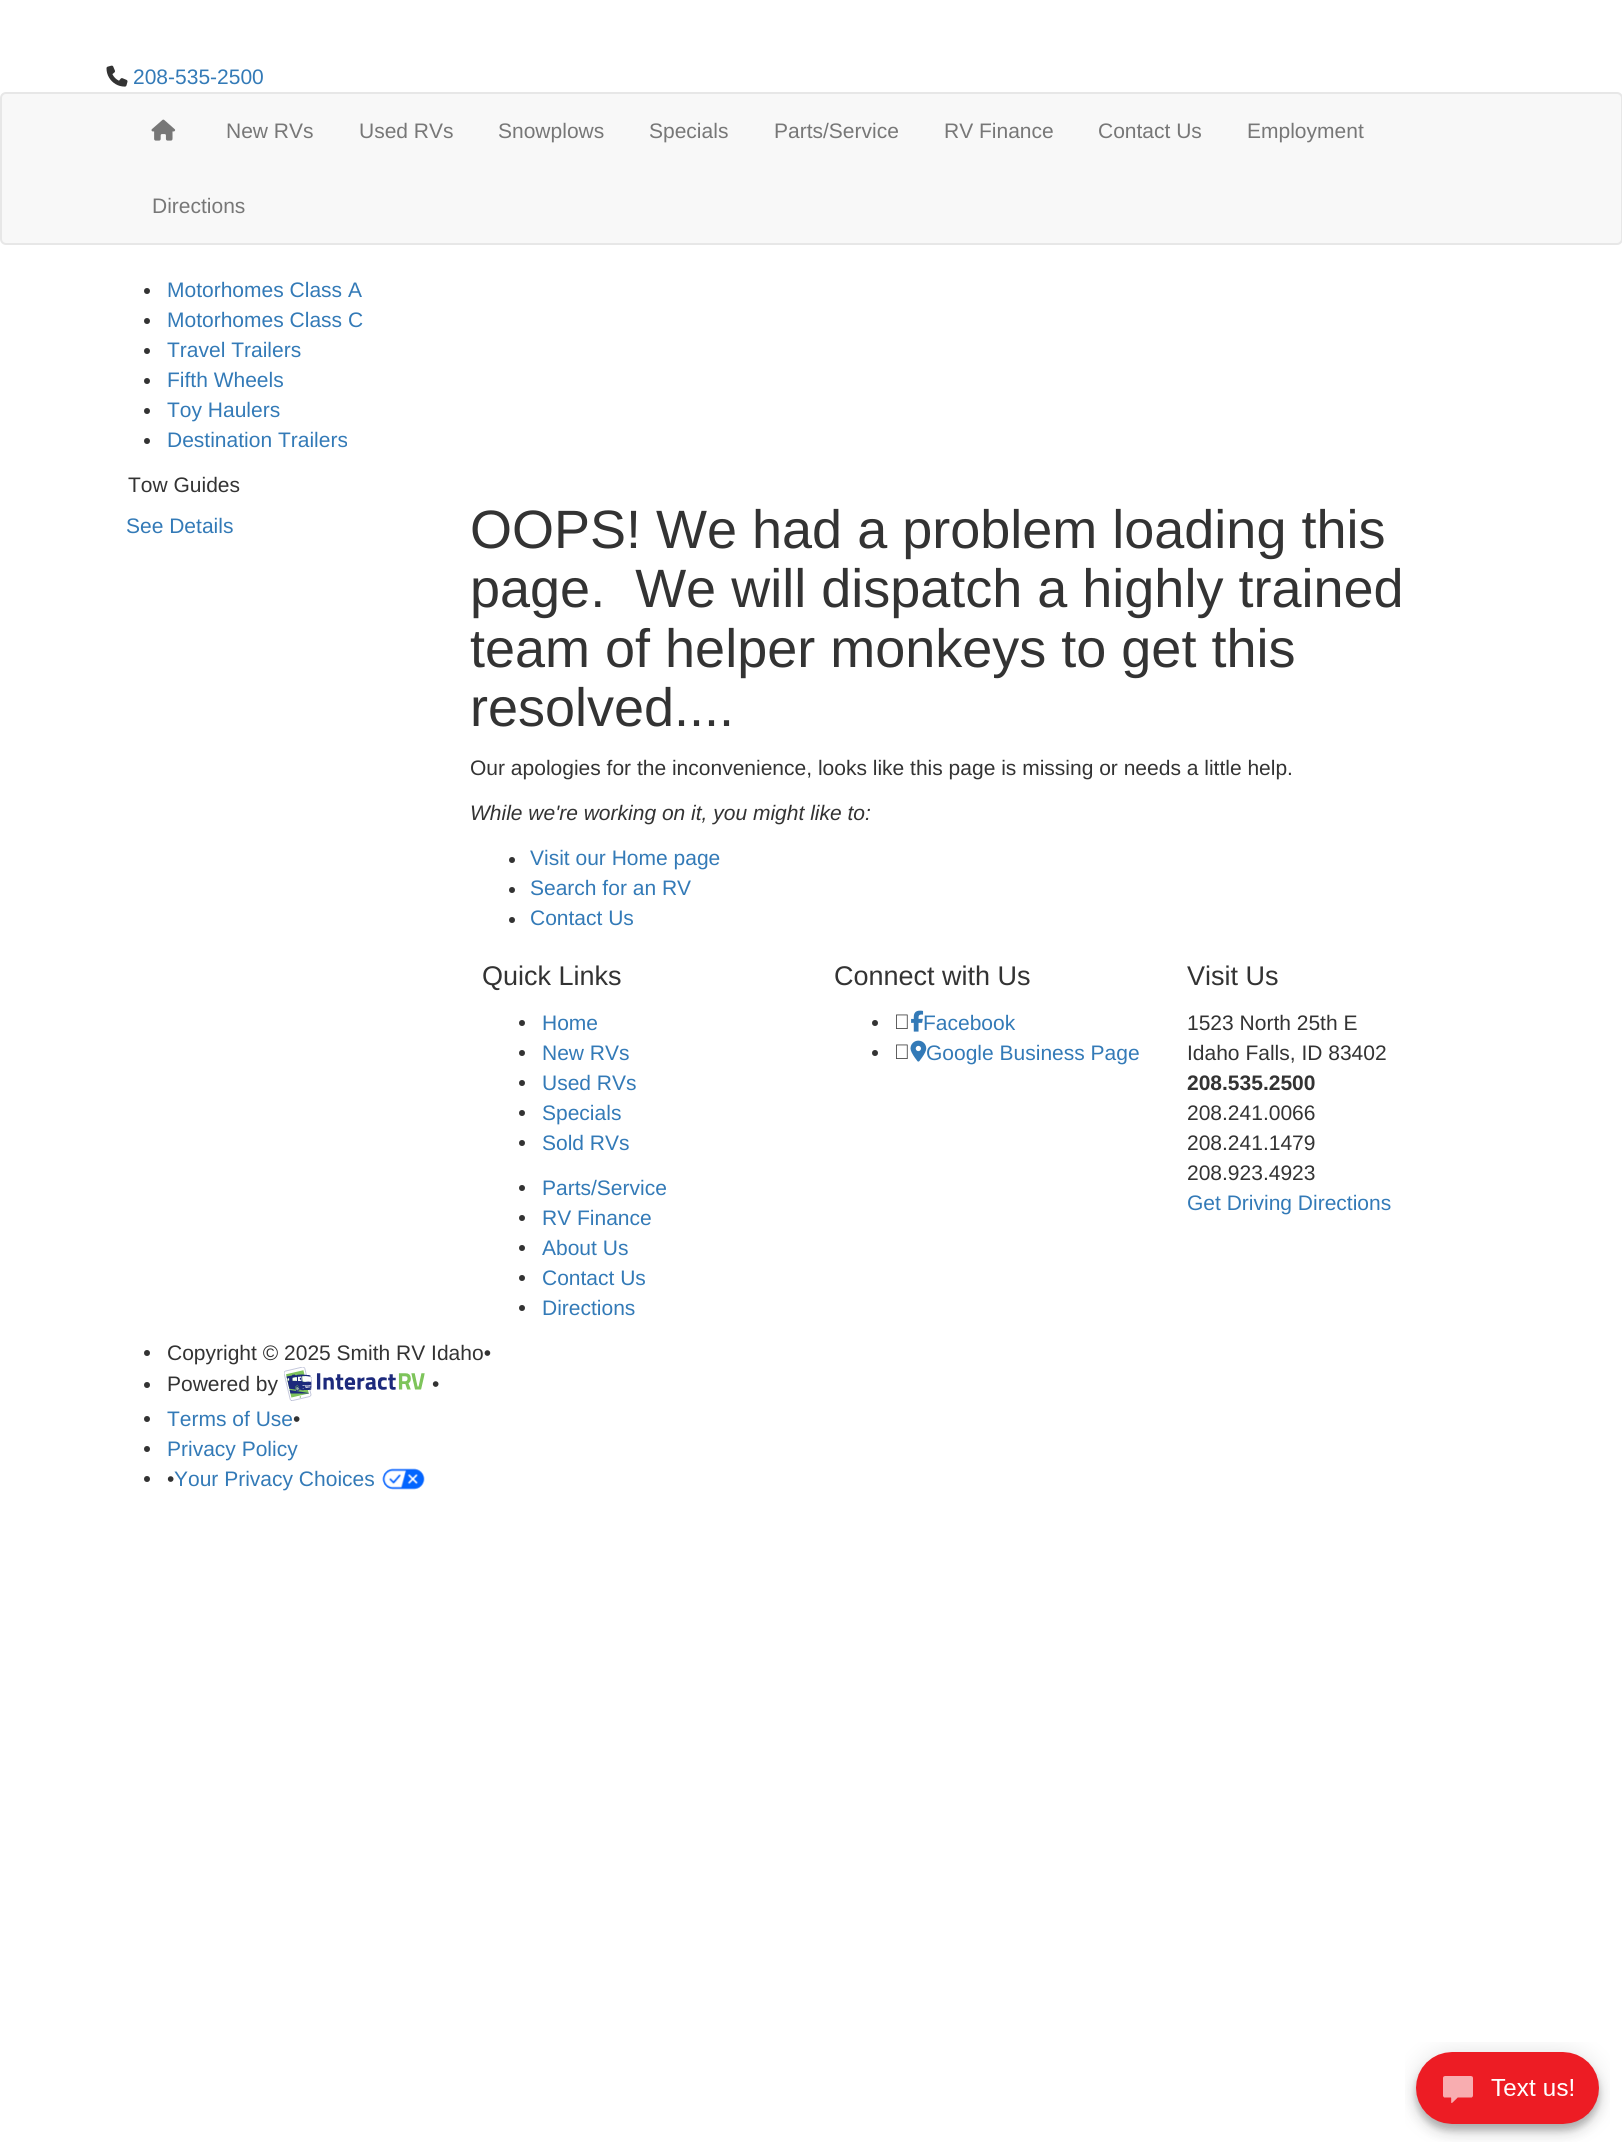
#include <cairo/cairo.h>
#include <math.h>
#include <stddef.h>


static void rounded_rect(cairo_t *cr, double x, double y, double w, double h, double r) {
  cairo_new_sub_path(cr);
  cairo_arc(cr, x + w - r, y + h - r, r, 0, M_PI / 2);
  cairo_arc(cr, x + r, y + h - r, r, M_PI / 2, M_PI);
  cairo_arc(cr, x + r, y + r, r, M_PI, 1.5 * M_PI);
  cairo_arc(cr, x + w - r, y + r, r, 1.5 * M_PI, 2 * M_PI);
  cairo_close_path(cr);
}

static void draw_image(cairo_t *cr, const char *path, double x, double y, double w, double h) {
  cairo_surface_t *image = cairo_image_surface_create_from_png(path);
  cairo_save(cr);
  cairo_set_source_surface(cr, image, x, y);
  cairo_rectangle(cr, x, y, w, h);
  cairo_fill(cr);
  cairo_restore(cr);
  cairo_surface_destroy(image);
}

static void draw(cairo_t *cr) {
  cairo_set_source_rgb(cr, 1, 1, 1);
  cairo_paint(cr);
  draw_image(cr, "images/1.png", 106, 65, 22, 22);
  cairo_set_source_rgb(cr, 248 / 255.0, 248 / 255.0, 248 / 255.0);
  rounded_rect(cr, 1, 93, 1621, 151, 5);
  cairo_fill_preserve(cr);
  cairo_set_source_rgb(cr, 231 / 255.0, 231 / 255.0, 231 / 255.0);
  cairo_stroke(cr);
  draw_image(cr, "images/2.png", 151, 119, 25, 22);
  cairo_set_source_rgb(cr, 51 / 255.0, 51 / 255.0, 51 / 255.0);
  cairo_arc(cr, 147, 291, 3, 0, 2 * M_PI);
  cairo_fill(cr);
  cairo_arc(cr, 147, 321, 3, 0, 2 * M_PI);
  cairo_fill(cr);
  cairo_arc(cr, 147, 351, 3, 0, 2 * M_PI);
  cairo_fill(cr);
  cairo_arc(cr, 147, 381, 3, 0, 2 * M_PI);
  cairo_fill(cr);
  cairo_arc(cr, 147, 411, 3, 0, 2 * M_PI);
  cairo_fill(cr);
  cairo_arc(cr, 147, 441, 3, 0, 2 * M_PI);
  cairo_fill(cr);
  cairo_arc(cr, 512, 860, 3, 0, 2 * M_PI);
  cairo_fill(cr);
  cairo_arc(cr, 512, 890, 3, 0, 2 * M_PI);
  cairo_fill(cr);
  cairo_arc(cr, 512, 920, 3, 0, 2 * M_PI);
  cairo_fill(cr);
  cairo_arc(cr, 522, 1023, 3, 0, 2 * M_PI);
  cairo_fill(cr);
  cairo_arc(cr, 522, 1053, 3, 0, 2 * M_PI);
  cairo_fill(cr);
  cairo_arc(cr, 522, 1083, 3, 0, 2 * M_PI);
  cairo_fill(cr);
  cairo_arc(cr, 522, 1113, 3, 0, 2 * M_PI);
  cairo_fill(cr);
  cairo_arc(cr, 522, 1143, 3, 0, 2 * M_PI);
  cairo_fill(cr);
  cairo_arc(cr, 522, 1188, 3, 0, 2 * M_PI);
  cairo_fill(cr);
  cairo_arc(cr, 522, 1218, 3, 0, 2 * M_PI);
  cairo_fill(cr);
  cairo_arc(cr, 522, 1248, 3, 0, 2 * M_PI);
  cairo_fill(cr);
  cairo_arc(cr, 522, 1278, 3, 0, 2 * M_PI);
  cairo_fill(cr);
  cairo_arc(cr, 522, 1308, 3, 0, 2 * M_PI);
  cairo_fill(cr);
  cairo_arc(cr, 875, 1023, 3, 0, 2 * M_PI);
  cairo_fill(cr);
  draw_image(cr, "images/3.png", 896, 1014, 12, 15);
  draw_image(cr, "images/4.png", 911, 1010, 13, 22);
  cairo_arc(cr, 875, 1053, 3, 0, 2 * M_PI);
  cairo_fill(cr);
  draw_image(cr, "images/3.png", 896, 1044, 12, 15);
  draw_image(cr, "images/5.png", 910, 1040, 17, 22);
  cairo_arc(cr, 147, 1353, 3, 0, 2 * M_PI);
  cairo_fill(cr);
  cairo_arc(cr, 147, 1385, 3, 0, 2 * M_PI);
  cairo_fill(cr);
  draw_image(cr, "images/6.png", 284, 1367, 141, 34);
  cairo_arc(cr, 147, 1419, 3, 0, 2 * M_PI);
  cairo_fill(cr);
  cairo_arc(cr, 147, 1449, 3, 0, 2 * M_PI);
  cairo_fill(cr);
  cairo_arc(cr, 147, 1479, 3, 0, 2 * M_PI);
  cairo_fill(cr);
  draw_image(cr, "images/7.png", 382, 1468, 43, 22);
  draw_image(cr, "images/8.png", 1405, 2042, 205, 100);
  cairo_select_font_face(cr, "Liberation Sans", CAIRO_FONT_SLANT_NORMAL, CAIRO_FONT_WEIGHT_NORMAL);
  cairo_set_font_size(cr, 21);
  cairo_set_source_rgb(cr, 51 / 255.0, 122 / 255.0, 183 / 255.0);
  cairo_move_to(cr, 133, 84);
  cairo_show_text(cr, "208-535-2500");
  cairo_set_source_rgb(cr, 119 / 255.0, 119 / 255.0, 119 / 255.0);
  cairo_move_to(cr, 226, 138);
  cairo_show_text(cr, "New RVs");
  cairo_move_to(cr, 359, 138);
  cairo_show_text(cr, "Used RVs");
  cairo_move_to(cr, 498, 138);
  cairo_show_text(cr, "Snowplows");
  cairo_move_to(cr, 649, 138);
  cairo_show_text(cr, "Specials");
  cairo_move_to(cr, 774, 138);
  cairo_show_text(cr, "Parts/Service");
  cairo_move_to(cr, 944, 138);
  cairo_show_text(cr, "RV Finance");
  cairo_move_to(cr, 1098, 138);
  cairo_show_text(cr, "Contact Us");
  cairo_move_to(cr, 1247, 138);
  cairo_show_text(cr, "Employment");
  cairo_move_to(cr, 152, 213);
  cairo_show_text(cr, "Directions");
  cairo_set_source_rgb(cr, 51 / 255.0, 122 / 255.0, 183 / 255.0);
  cairo_move_to(cr, 167, 297);
  cairo_show_text(cr, "Motorhomes Class A");
  cairo_move_to(cr, 167, 327);
  cairo_show_text(cr, "Motorhomes Class C");
  cairo_move_to(cr, 167, 357);
  cairo_show_text(cr, "Travel Trailers");
  cairo_move_to(cr, 167, 387);
  cairo_show_text(cr, "Fifth Wheels");
  cairo_move_to(cr, 167, 417);
  cairo_show_text(cr, "Toy Haulers");
  cairo_move_to(cr, 167, 447);
  cairo_show_text(cr, "Destination Trailers");
  cairo_set_source_rgb(cr, 51 / 255.0, 51 / 255.0, 51 / 255.0);
  cairo_move_to(cr, 128, 492);
  cairo_show_text(cr, "Tow Guides");
  cairo_set_source_rgb(cr, 51 / 255.0, 122 / 255.0, 183 / 255.0);
  cairo_move_to(cr, 126, 533);
  cairo_show_text(cr, "See Details");
  cairo_set_font_size(cr, 54);
  cairo_set_source_rgb(cr, 51 / 255.0, 51 / 255.0, 51 / 255.0);
  cairo_move_to(cr, 470, 548);
  cairo_show_text(cr, "OOPS! We had a problem loading this");
  cairo_move_to(cr, 470, 607);
  cairo_show_text(cr, "page.  We will dispatch a highly trained");
  cairo_move_to(cr, 470, 667);
  cairo_show_text(cr, "team of helper monkeys to get this");
  cairo_move_to(cr, 470, 726);
  cairo_show_text(cr, "resolved....");
  cairo_set_font_size(cr, 21);
  cairo_move_to(cr, 470, 775);
  cairo_show_text(cr, "Our apologies for the inconvenience, looks like this page is missing or needs a little help.");
  cairo_select_font_face(cr, "Liberation Sans", CAIRO_FONT_SLANT_ITALIC, CAIRO_FONT_WEIGHT_NORMAL);
  cairo_move_to(cr, 470, 820);
  cairo_show_text(cr, "While we're working on it, you might like to:");
  cairo_select_font_face(cr, "Liberation Sans", CAIRO_FONT_SLANT_NORMAL, CAIRO_FONT_WEIGHT_NORMAL);
  cairo_set_source_rgb(cr, 51 / 255.0, 122 / 255.0, 183 / 255.0);
  cairo_move_to(cr, 530, 865);
  cairo_show_text(cr, "Visit our Home page");
  cairo_move_to(cr, 530, 895);
  cairo_show_text(cr, "Search for an RV");
  cairo_move_to(cr, 530, 925);
  cairo_show_text(cr, "Contact Us");
  cairo_set_font_size(cr, 27);
  cairo_set_source_rgb(cr, 51 / 255.0, 51 / 255.0, 51 / 255.0);
  cairo_move_to(cr, 482, 985);
  cairo_show_text(cr, "Quick Links");
  cairo_set_font_size(cr, 21);
  cairo_set_source_rgb(cr, 51 / 255.0, 122 / 255.0, 183 / 255.0);
  cairo_move_to(cr, 542, 1030);
  cairo_show_text(cr, "Home");
  cairo_move_to(cr, 542, 1060);
  cairo_show_text(cr, "New RVs");
  cairo_move_to(cr, 542, 1090);
  cairo_show_text(cr, "Used RVs");
  cairo_move_to(cr, 542, 1120);
  cairo_show_text(cr, "Specials");
  cairo_move_to(cr, 542, 1150);
  cairo_show_text(cr, "Sold RVs");
  cairo_move_to(cr, 542, 1195);
  cairo_show_text(cr, "Parts/Service");
  cairo_move_to(cr, 542, 1225);
  cairo_show_text(cr, "RV Finance");
  cairo_move_to(cr, 542, 1255);
  cairo_show_text(cr, "About Us");
  cairo_move_to(cr, 542, 1285);
  cairo_show_text(cr, "Contact Us");
  cairo_move_to(cr, 542, 1315);
  cairo_show_text(cr, "Directions");
  cairo_set_font_size(cr, 27);
  cairo_set_source_rgb(cr, 51 / 255.0, 51 / 255.0, 51 / 255.0);
  cairo_move_to(cr, 834, 985);
  cairo_show_text(cr, "Connect with Us");
  cairo_set_font_size(cr, 21);
  cairo_set_source_rgb(cr, 51 / 255.0, 122 / 255.0, 183 / 255.0);
  cairo_move_to(cr, 923, 1030);
  cairo_show_text(cr, "Facebook");
  cairo_move_to(cr, 926, 1060);
  cairo_show_text(cr, "Google Business Page");
  cairo_set_font_size(cr, 27);
  cairo_set_source_rgb(cr, 51 / 255.0, 51 / 255.0, 51 / 255.0);
  cairo_move_to(cr, 1187, 985);
  cairo_show_text(cr, "Visit Us");
  cairo_set_font_size(cr, 21);
  cairo_move_to(cr, 1187, 1030);
  cairo_show_text(cr, "1523 North 25th E");
  cairo_move_to(cr, 1187, 1060);
  cairo_show_text(cr, "Idaho Falls, ID 83402");
  cairo_select_font_face(cr, "Liberation Sans", CAIRO_FONT_SLANT_NORMAL, CAIRO_FONT_WEIGHT_BOLD);
  cairo_move_to(cr, 1187, 1090);
  cairo_show_text(cr, "208.535.2500");
  cairo_select_font_face(cr, "Liberation Sans", CAIRO_FONT_SLANT_NORMAL, CAIRO_FONT_WEIGHT_NORMAL);
  cairo_move_to(cr, 1187, 1120);
  cairo_show_text(cr, "208.241.0066");
  cairo_move_to(cr, 1187, 1150);
  cairo_show_text(cr, "208.241.1479");
  cairo_move_to(cr, 1187, 1180);
  cairo_show_text(cr, "208.923.4923");
  cairo_set_source_rgb(cr, 51 / 255.0, 122 / 255.0, 183 / 255.0);
  cairo_move_to(cr, 1187, 1210);
  cairo_show_text(cr, "Get Driving Directions");
  cairo_set_source_rgb(cr, 51 / 255.0, 51 / 255.0, 51 / 255.0);
  cairo_move_to(cr, 167, 1360);
  cairo_show_text(cr, "Copyright © 2025 Smith RV Idaho•");
  cairo_move_to(cr, 167, 1391);
  cairo_show_text(cr, "Powered by");
  cairo_move_to(cr, 432, 1391);
  cairo_show_text(cr, "•");
  cairo_set_source_rgb(cr, 51 / 255.0, 122 / 255.0, 183 / 255.0);
  cairo_move_to(cr, 167, 1426);
  cairo_show_text(cr, "Terms of Use");
  cairo_set_source_rgb(cr, 51 / 255.0, 51 / 255.0, 51 / 255.0);
  cairo_move_to(cr, 293, 1426);
  cairo_show_text(cr, "•");
  cairo_set_source_rgb(cr, 51 / 255.0, 122 / 255.0, 183 / 255.0);
  cairo_move_to(cr, 167, 1456);
  cairo_show_text(cr, "Privacy Policy");
  cairo_set_source_rgb(cr, 51 / 255.0, 51 / 255.0, 51 / 255.0);
  cairo_move_to(cr, 167, 1486);
  cairo_show_text(cr, "•");
  cairo_set_source_rgb(cr, 51 / 255.0, 122 / 255.0, 183 / 255.0);
  cairo_move_to(cr, 174, 1486);
  cairo_show_text(cr, "Your Privacy Choices");
}

int main(void) {
  cairo_surface_t *surface = cairo_image_surface_create(CAIRO_FORMAT_RGB24, 1622, 2155);
  cairo_t *cr = cairo_create(surface);
  cairo_font_options_t *options = cairo_font_options_create();
  cairo_font_options_set_hint_metrics(options, CAIRO_HINT_METRICS_OFF);
  cairo_font_options_set_hint_style(options, CAIRO_HINT_STYLE_NONE);
  cairo_set_font_options(cr, options);
  cairo_set_miter_limit(cr, 4);
  draw(cr);
  cairo_surface_write_to_png(surface, "out.png");
  cairo_font_options_destroy(options);
  cairo_destroy(cr);
  cairo_surface_destroy(surface);
  return 0;
}
